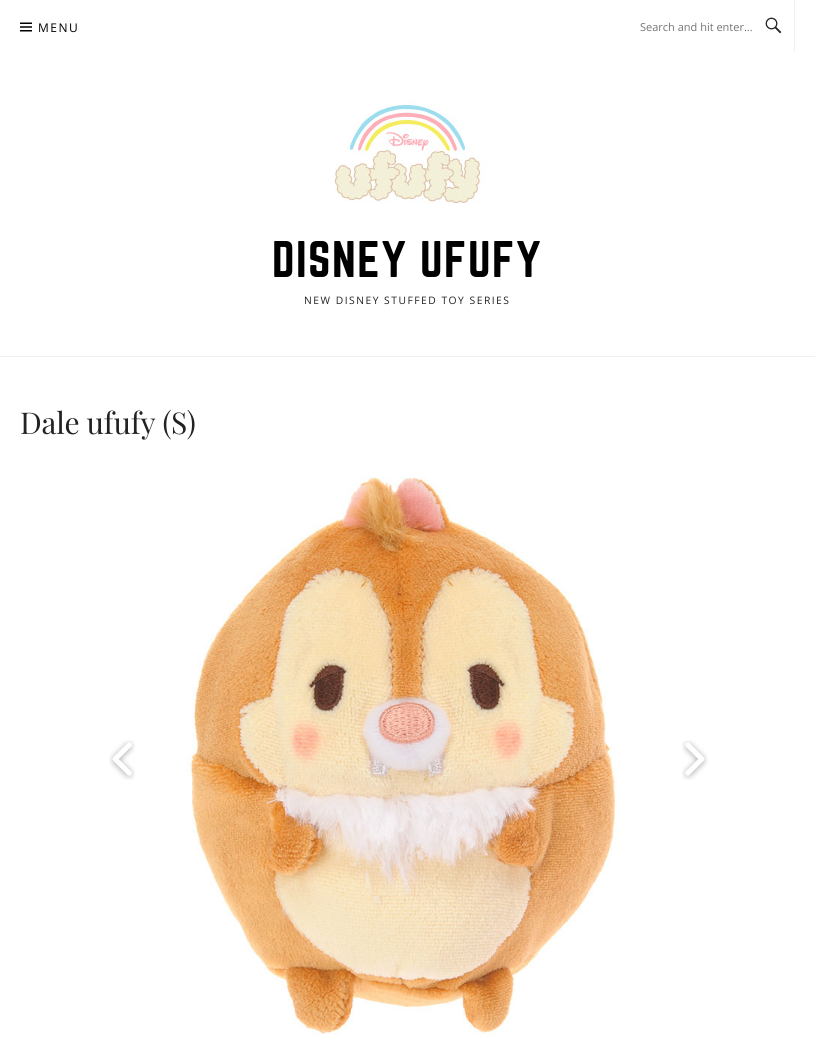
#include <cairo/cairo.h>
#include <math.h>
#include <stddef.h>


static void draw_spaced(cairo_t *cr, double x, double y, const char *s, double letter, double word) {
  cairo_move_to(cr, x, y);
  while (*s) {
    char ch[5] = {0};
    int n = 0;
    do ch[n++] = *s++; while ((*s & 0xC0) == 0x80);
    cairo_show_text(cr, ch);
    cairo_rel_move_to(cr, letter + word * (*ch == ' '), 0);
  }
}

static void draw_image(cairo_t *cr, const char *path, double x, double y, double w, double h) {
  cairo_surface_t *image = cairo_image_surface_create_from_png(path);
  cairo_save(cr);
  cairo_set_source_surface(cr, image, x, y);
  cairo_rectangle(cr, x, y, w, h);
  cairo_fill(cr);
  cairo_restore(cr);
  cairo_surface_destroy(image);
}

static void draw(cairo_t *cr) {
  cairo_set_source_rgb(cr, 1, 1, 1);
  cairo_paint(cr);
  draw_image(cr, "images/1.png", 20, 22, 12, 10);
  cairo_set_source_rgb(cr, 241 / 255.0, 241 / 255.0, 241 / 255.0);
  cairo_rectangle(cr, 794, 0, 1, 52);
  cairo_fill(cr);
  draw_image(cr, "images/2.png", 765, 17, 17, 17);
  draw_image(cr, "images/3.png", 334, 99, 152, 104);
  cairo_rectangle(cr, 0, 356, 815, 1);
  cairo_fill(cr);
  draw_image(cr, "images/4.png", 109, 740, 26, 40);
  draw_image(cr, "images/5.png", 186, 477, 432, 558);
  draw_image(cr, "images/6.png", 682, 740, 26, 40);
  cairo_select_font_face(cr, "Open Sans", CAIRO_FONT_SLANT_NORMAL, CAIRO_FONT_WEIGHT_NORMAL);
  cairo_set_font_size(cr, 12);
  cairo_set_source_rgb(cr, 0, 0, 0);
  draw_spaced(cr, 38, 32, "MENU", 1.5, 0);
  cairo_set_font_size(cr, 11);
  cairo_set_source_rgb(cr, 117 / 255.0, 117 / 255.0, 117 / 255.0);
  cairo_move_to(cr, 640, 31);
  cairo_show_text(cr, "Search and hit enter...");
  cairo_select_font_face(cr, "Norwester", CAIRO_FONT_SLANT_NORMAL, CAIRO_FONT_WEIGHT_NORMAL);
  cairo_set_font_size(cr, 45);
  cairo_set_source_rgb(cr, 0, 0, 0);
  draw_spaced(cr, 272, 277, "DISNEY UFUFY", 1.5, 0);
  cairo_select_font_face(cr, "Open Sans", CAIRO_FONT_SLANT_NORMAL, CAIRO_FONT_WEIGHT_NORMAL);
  cairo_set_font_size(cr, 10.3);
  cairo_set_source_rgb(cr, 34 / 255.0, 34 / 255.0, 34 / 255.0);
  draw_spaced(cr, 304, 304, "NEW DISNEY STUFFED TOY SERIES", 1.5, 0);
  cairo_select_font_face(cr, "Playfair Display", CAIRO_FONT_SLANT_NORMAL, CAIRO_FONT_WEIGHT_NORMAL);
  cairo_set_font_size(cr, 30);
  draw_spaced(cr, 20, 434, "Dale ufufy (S)", -0.25, 0);
}

int main(void) {
  cairo_surface_t *surface = cairo_image_surface_create(CAIRO_FORMAT_RGB24, 815, 1051);
  cairo_t *cr = cairo_create(surface);
  cairo_font_options_t *options = cairo_font_options_create();
  cairo_font_options_set_hint_metrics(options, CAIRO_HINT_METRICS_OFF);
  cairo_font_options_set_hint_style(options, CAIRO_HINT_STYLE_NONE);
  cairo_set_font_options(cr, options);
  cairo_set_miter_limit(cr, 4);
  draw(cr);
  cairo_surface_write_to_png(surface, "out.png");
  cairo_font_options_destroy(options);
  cairo_destroy(cr);
  cairo_surface_destroy(surface);
  return 0;
}
